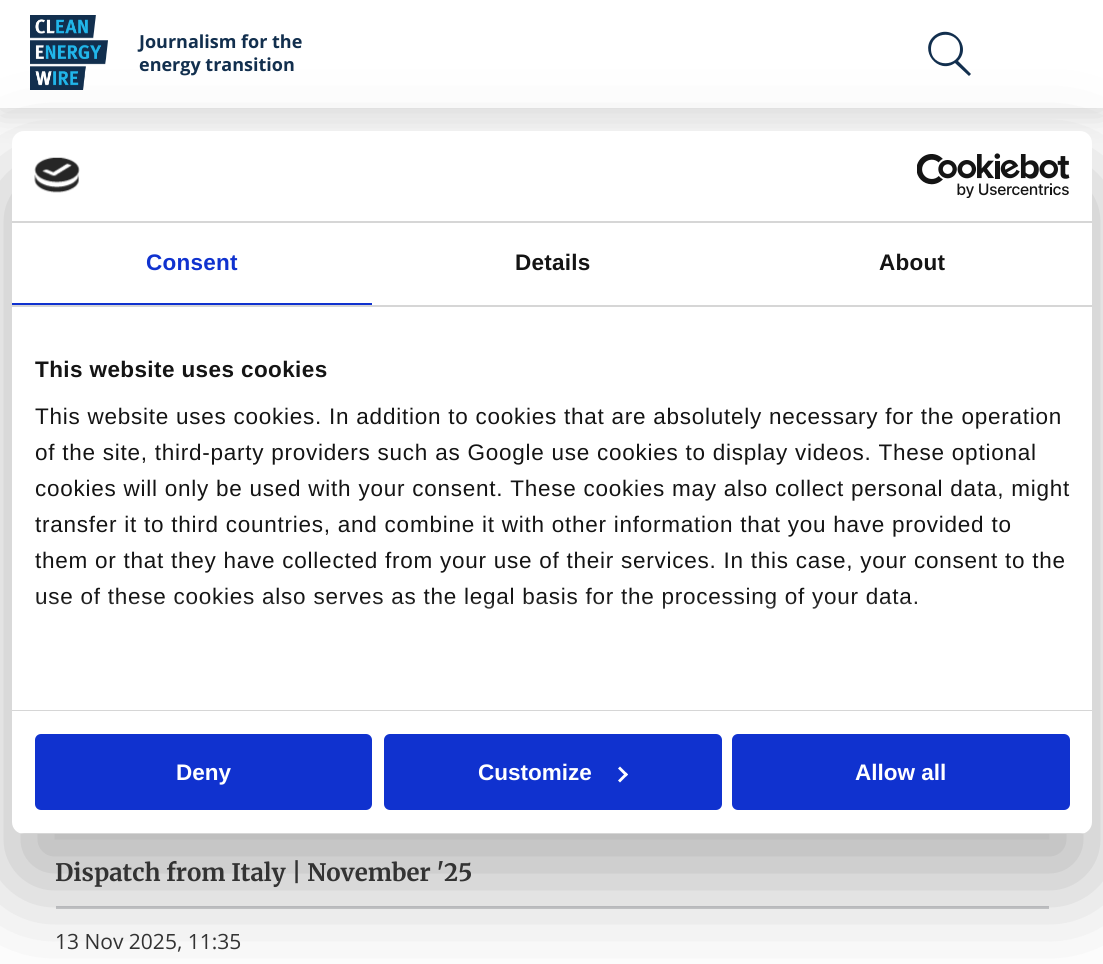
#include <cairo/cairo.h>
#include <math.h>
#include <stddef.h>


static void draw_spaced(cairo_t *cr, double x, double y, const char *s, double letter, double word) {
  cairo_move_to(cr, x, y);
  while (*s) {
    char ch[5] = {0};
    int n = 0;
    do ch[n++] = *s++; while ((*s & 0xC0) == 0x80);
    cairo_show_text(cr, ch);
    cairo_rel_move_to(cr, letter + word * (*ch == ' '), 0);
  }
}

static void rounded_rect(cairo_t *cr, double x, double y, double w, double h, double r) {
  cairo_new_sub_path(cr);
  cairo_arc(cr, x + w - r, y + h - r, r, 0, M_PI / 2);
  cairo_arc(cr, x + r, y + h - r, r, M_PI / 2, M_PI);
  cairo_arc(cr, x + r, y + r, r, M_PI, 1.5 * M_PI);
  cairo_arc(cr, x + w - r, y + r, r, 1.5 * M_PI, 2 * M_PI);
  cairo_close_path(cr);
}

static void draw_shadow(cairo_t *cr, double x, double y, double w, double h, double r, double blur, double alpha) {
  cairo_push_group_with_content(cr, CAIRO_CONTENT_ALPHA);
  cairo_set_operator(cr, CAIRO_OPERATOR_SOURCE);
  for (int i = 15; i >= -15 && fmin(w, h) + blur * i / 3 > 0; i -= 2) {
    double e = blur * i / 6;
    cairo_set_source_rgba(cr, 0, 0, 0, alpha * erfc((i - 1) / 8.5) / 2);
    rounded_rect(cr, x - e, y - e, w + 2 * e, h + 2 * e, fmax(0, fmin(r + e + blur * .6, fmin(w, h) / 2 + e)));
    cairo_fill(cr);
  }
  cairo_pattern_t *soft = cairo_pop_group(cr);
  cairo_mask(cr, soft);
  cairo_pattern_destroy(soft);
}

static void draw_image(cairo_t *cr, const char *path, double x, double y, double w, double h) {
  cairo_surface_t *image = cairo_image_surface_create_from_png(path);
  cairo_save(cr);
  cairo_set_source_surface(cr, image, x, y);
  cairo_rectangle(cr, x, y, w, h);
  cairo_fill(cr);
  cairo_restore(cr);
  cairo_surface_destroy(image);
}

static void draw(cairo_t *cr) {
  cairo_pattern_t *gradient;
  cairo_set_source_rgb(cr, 1, 1, 1);
  cairo_paint(cr);
  cairo_set_source_rgb(cr, 0, 0, 0);
  draw_shadow(cr, 0, 3, 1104, 108, 0, 15, 0.17);
  cairo_set_source_rgb(cr, 1, 1, 1);
  cairo_rectangle(cr, 0, 0, 1103, 108);
  cairo_fill(cr);
  draw_image(cr, "images/1.png", 30, 15, 78, 75);
  cairo_set_source_rgb(cr, 18 / 255.0, 47 / 255.0, 78 / 255.0);
  cairo_new_path(cr);
  cairo_move_to(cr, 971, 74);
  cairo_line_to(cr, 958, 61);
  cairo_curve_to(cr, 973, 46, 951, 22, 934, 36);
  cairo_curve_to(cr, 918, 50, 938, 75, 955, 63);
  cairo_line_to(cr, 969, 76);
  cairo_close_path(cr);
  cairo_move_to(cr, 931, 49);
  cairo_curve_to(cr, 931, 30, 960, 30, 960, 49);
  cairo_curve_to(cr, 960, 68, 931, 68, 931, 49);
  cairo_close_path(cr);
  cairo_fill(cr);
  cairo_set_source_rgb(cr, 206 / 255.0, 207 / 255.0, 210 / 255.0);
  cairo_rectangle(cr, 56, 906, 993, 3);
  cairo_fill(cr);
  cairo_set_source_rgb(cr, 0, 0, 0);
  draw_shadow(cr, 12, 179, 1080, 703, 12, 51, 0.3);
  cairo_set_source_rgb(cr, 1, 1, 1);
  rounded_rect(cr, 12, 131, 1080, 703, 12);
  cairo_fill(cr);
  cairo_set_source_rgb(cr, 214 / 255.0, 214 / 255.0, 214 / 255.0);
  cairo_rectangle(cr, 12, 221, 1080, 2);
  cairo_fill(cr);
  draw_image(cr, "images/2.png", 34, 157, 46, 36);
  draw_image(cr, "images/3.png", 917, 153, 153, 45);
  cairo_rectangle(cr, 12, 305, 1080, 2);
  cairo_fill(cr);
  cairo_set_source_rgb(cr, 16 / 255.0, 50 / 255.0, 207 / 255.0);
  cairo_rectangle(cr, 12, 303, 360, 2);
  cairo_fill(cr);
  cairo_set_source_rgb(cr, 214 / 255.0, 214 / 255.0, 214 / 255.0);
  cairo_rectangle(cr, 12, 710, 1080, 1);
  cairo_fill(cr);
  cairo_save(cr);
  rounded_rect(cr, 12, 131, 1080, 703, 12);
  cairo_clip(cr);
  cairo_rectangle(cr, 12, 833, 1080, 1);
  cairo_fill(cr);
  cairo_restore(cr);
  cairo_set_source_rgb(cr, 16 / 255.0, 50 / 255.0, 207 / 255.0);
  rounded_rect(cr, 36.5, 735.5, 334, 73, 4.5);
  cairo_fill_preserve(cr);
  cairo_set_line_width(cr, 3);
  cairo_stroke(cr);
  rounded_rect(cr, 385.5, 735.5, 335, 73, 4.5);
  cairo_fill_preserve(cr);
  cairo_stroke(cr);
  cairo_set_source_rgb(cr, 1, 1, 1);
  cairo_new_path(cr);
  cairo_move_to(cr, 620, 766.5);
  cairo_line_to(cr, 628, 774.5);
  cairo_line_to(cr, 626, 776.5);
  cairo_line_to(cr, 618, 768.5);
  cairo_close_path(cr);
  cairo_fill(cr);
  cairo_new_path(cr);
  cairo_move_to(cr, 626, 772.5);
  cairo_line_to(cr, 628, 774.5);
  cairo_line_to(cr, 620, 782.5);
  cairo_line_to(cr, 618, 780.5);
  cairo_close_path(cr);
  cairo_fill(cr);
  cairo_set_source_rgb(cr, 16 / 255.0, 50 / 255.0, 207 / 255.0);
  rounded_rect(cr, 733.5, 735.5, 335, 73, 4.5);
  cairo_fill_preserve(cr);
  cairo_stroke(cr);
  cairo_select_font_face(cr, "Open Sans", CAIRO_FONT_SLANT_NORMAL, CAIRO_FONT_WEIGHT_BOLD);
  cairo_set_font_size(cr, 18);
  cairo_set_source_rgb(cr, 18 / 255.0, 47 / 255.0, 78 / 255.0);
  cairo_move_to(cr, 139, 48);
  cairo_show_text(cr, "Journalism for the");
  cairo_move_to(cr, 139, 71);
  cairo_show_text(cr, "energy transition");
  cairo_select_font_face(cr, "Liberation Sans", CAIRO_FONT_SLANT_NORMAL, CAIRO_FONT_WEIGHT_BOLD);
  cairo_set_font_size(cr, 22.5);
  cairo_set_source_rgb(cr, 16 / 255.0, 50 / 255.0, 207 / 255.0);
  draw_spaced(cr, 146, 270, "Consent", 0.25, 0);
  cairo_set_source_rgb(cr, 20 / 255.0, 20 / 255.0, 20 / 255.0);
  draw_spaced(cr, 515, 270, "Details", 0.25, 0);
  draw_spaced(cr, 879, 270, "About", 0.25, 0);
  draw_spaced(cr, 35, 377, "This website uses cookies", 0.4, 0);
  cairo_select_font_face(cr, "Liberation Sans", CAIRO_FONT_SLANT_NORMAL, CAIRO_FONT_WEIGHT_NORMAL);
  draw_spaced(cr, 35, 424, "This website uses cookies. In addition to cookies that are absolutely necessary for the operation", 0.75, 0);
  draw_spaced(cr, 35, 460, "of the site, third-party providers such as Google use cookies to display videos. These optional", 0.75, 0);
  draw_spaced(cr, 35, 496, "cookies will only be used with your consent. These cookies may also collect personal data, might", 0.75, 0);
  draw_spaced(cr, 35, 532, "transfer it to third countries, and combine it with other information that you have provided to", 0.75, 0);
  draw_spaced(cr, 35, 568, "them or that they have collected from your use of their services. In this case, your consent to the", 0.75, 0);
  draw_spaced(cr, 35, 604, "use of these cookies also serves as the legal basis for the processing of your data.", 0.75, 0);
  gradient = cairo_pattern_create_linear(542, 710, 542, 597);
  cairo_pattern_add_color_stop_rgba(gradient, 0, 1, 1, 1, 1);
  cairo_pattern_add_color_stop_rgba(gradient, 0.5, 1, 1, 1, 0.8);
  cairo_pattern_add_color_stop_rgba(gradient, 1, 1, 1, 1, 0);
  cairo_set_source(cr, gradient);
  cairo_pattern_destroy(gradient);
  cairo_rectangle(cr, 36, 599, 881, 10);
  cairo_fill(cr);
  cairo_select_font_face(cr, "Liberation Sans", CAIRO_FONT_SLANT_NORMAL, CAIRO_FONT_WEIGHT_BOLD);
  cairo_set_source_rgb(cr, 1, 1, 1);
  cairo_move_to(cr, 176, 780);
  cairo_show_text(cr, "Deny");
  cairo_move_to(cr, 478, 780);
  cairo_show_text(cr, "Customize");
  cairo_move_to(cr, 855, 780);
  cairo_show_text(cr, "Allow all");
  cairo_select_font_face(cr, "Merriweather", CAIRO_FONT_SLANT_NORMAL, CAIRO_FONT_WEIGHT_BOLD);
  cairo_set_font_size(cr, 24);
  cairo_set_source_rgb(cr, 51 / 255.0, 51 / 255.0, 51 / 255.0);
  cairo_move_to(cr, 55, 881);
  cairo_show_text(cr, "Dispatch from Italy | November '25");
  cairo_select_font_face(cr, "Open Sans", CAIRO_FONT_SLANT_NORMAL, CAIRO_FONT_WEIGHT_NORMAL);
  cairo_set_font_size(cr, 21);
  cairo_move_to(cr, 55, 949);
  cairo_show_text(cr, "13 Nov 2025, 11:35");
}

int main(void) {
  cairo_surface_t *surface = cairo_image_surface_create(CAIRO_FORMAT_RGB24, 1103, 964);
  cairo_t *cr = cairo_create(surface);
  cairo_font_options_t *options = cairo_font_options_create();
  cairo_font_options_set_hint_metrics(options, CAIRO_HINT_METRICS_OFF);
  cairo_font_options_set_hint_style(options, CAIRO_HINT_STYLE_NONE);
  cairo_set_font_options(cr, options);
  cairo_set_miter_limit(cr, 4);
  draw(cr);
  cairo_surface_write_to_png(surface, "out.png");
  cairo_font_options_destroy(options);
  cairo_destroy(cr);
  cairo_surface_destroy(surface);
  return 0;
}
